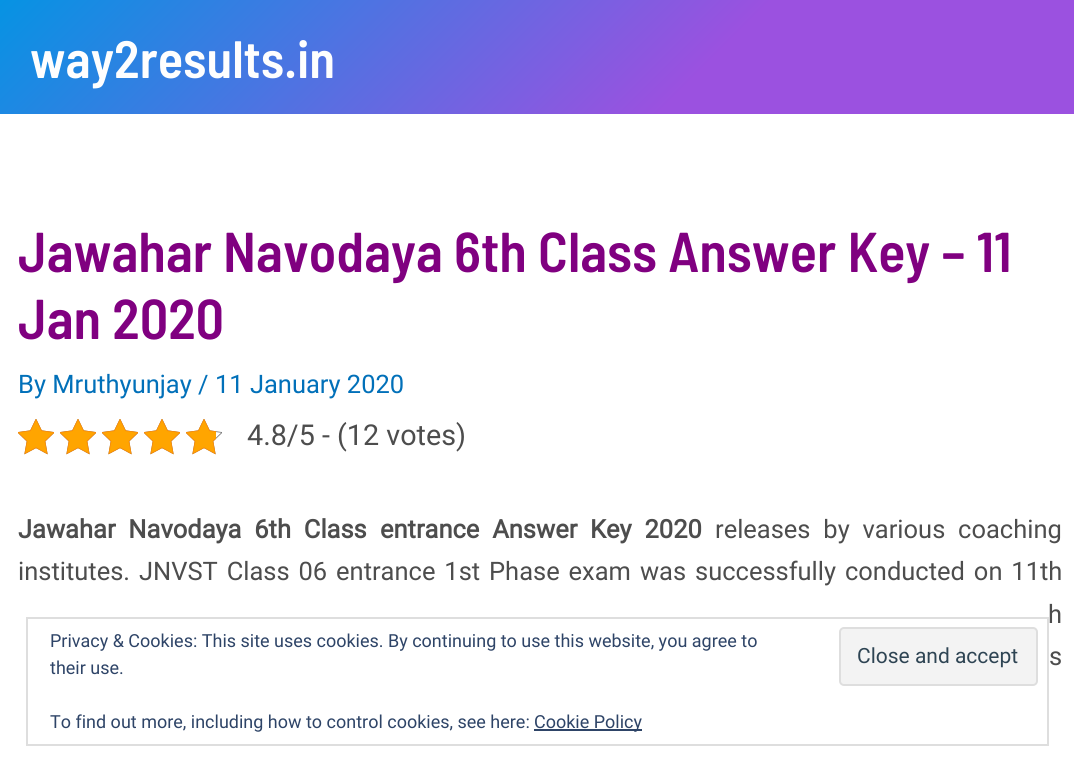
#include <cairo/cairo.h>
#include <math.h>
#include <stddef.h>


static void draw_spaced(cairo_t *cr, double x, double y, const char *s, double letter, double word) {
  cairo_move_to(cr, x, y);
  while (*s) {
    char ch[5] = {0};
    int n = 0;
    do ch[n++] = *s++; while ((*s & 0xC0) == 0x80);
    cairo_show_text(cr, ch);
    cairo_rel_move_to(cr, letter + word * (*ch == ' '), 0);
  }
}

static void rounded_rect(cairo_t *cr, double x, double y, double w, double h, double r) {
  cairo_new_sub_path(cr);
  cairo_arc(cr, x + w - r, y + h - r, r, 0, M_PI / 2);
  cairo_arc(cr, x + r, y + h - r, r, M_PI / 2, M_PI);
  cairo_arc(cr, x + r, y + r, r, M_PI, 1.5 * M_PI);
  cairo_arc(cr, x + w - r, y + r, r, 1.5 * M_PI, 2 * M_PI);
  cairo_close_path(cr);
}

static void draw_image(cairo_t *cr, const char *path, double x, double y, double w, double h) {
  cairo_surface_t *image = cairo_image_surface_create_from_png(path);
  cairo_save(cr);
  cairo_set_source_surface(cr, image, x, y);
  cairo_rectangle(cr, x, y, w, h);
  cairo_fill(cr);
  cairo_restore(cr);
  cairo_surface_destroy(image);
}

static void draw(cairo_t *cr) {
  cairo_pattern_t *gradient;
  cairo_set_source_rgb(cr, 1, 1, 1);
  cairo_paint(cr);
  gradient = cairo_pattern_create_linear(240, -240, 834, 354);
  cairo_pattern_add_color_stop_rgba(gradient, 0, 6 / 255.0, 147 / 255.0, 227 / 255.0, 1);
  cairo_pattern_add_color_stop_rgba(gradient, 0.65, 155 / 255.0, 81 / 255.0, 224 / 255.0, 1);
  cairo_set_source(cr, gradient);
  cairo_pattern_destroy(gradient);
  cairo_rectangle(cr, 0, 0, 1074, 114);
  cairo_fill(cr);
  draw_image(cr, "images/1.png", 18, 419, 36, 36);
  draw_image(cr, "images/1.png", 60, 419, 36, 36);
  draw_image(cr, "images/1.png", 102, 419, 36, 36);
  draw_image(cr, "images/1.png", 144, 419, 36, 36);
  draw_image(cr, "images/1.png", 186, 419, 36, 36);
  draw_image(cr, "images/2.png", 18, 419, 36, 36);
  draw_image(cr, "images/2.png", 60, 419, 36, 36);
  draw_image(cr, "images/2.png", 102, 419, 36, 36);
  draw_image(cr, "images/2.png", 144, 419, 36, 36);
  draw_image(cr, "images/3.png", 186, 419, 30, 36);
  cairo_rectangle(cr, 27, 618, 1021, 127);
  cairo_set_source_rgb(cr, 222 / 255.0, 222 / 255.0, 222 / 255.0);
  cairo_stroke(cr);
  cairo_set_source_rgb(cr, 243 / 255.0, 243 / 255.0, 243 / 255.0);
  rounded_rect(cr, 840, 628, 197, 57, 4);
  cairo_fill_preserve(cr);
  cairo_set_source_rgb(cr, 222 / 255.0, 222 / 255.0, 222 / 255.0);
  cairo_stroke(cr);
  cairo_set_source_rgb(cr, 46 / 255.0, 68 / 255.0, 103 / 255.0);
  cairo_rectangle(cr, 534, 729, 108, 2);
  cairo_fill(cr);
  cairo_select_font_face(cr, "Barlow Semi Condensed SemiBold", CAIRO_FONT_SLANT_NORMAL, CAIRO_FONT_WEIGHT_NORMAL);
  cairo_set_font_size(cr, 52.5);
  cairo_set_source_rgb(cr, 254 / 255.0, 254 / 255.0, 254 / 255.0);
  cairo_move_to(cr, 30, 78);
  cairo_show_text(cr, "way2results.in");
  cairo_set_font_size(cr, 56.1);
  cairo_set_source_rgb(cr, 128 / 255.0, 0, 128 / 255.0);
  cairo_move_to(cr, 18, 272);
  cairo_show_text(cr, "Jawahar Navodaya 6th Class Answer Key – 11");
  cairo_move_to(cr, 18, 339);
  cairo_show_text(cr, "Jan 2020");
  cairo_select_font_face(cr, "Roboto", CAIRO_FONT_SLANT_NORMAL, CAIRO_FONT_WEIGHT_NORMAL);
  cairo_set_font_size(cr, 25.5);
  cairo_set_source_rgb(cr, 1 / 255.0, 112 / 255.0, 185 / 255.0);
  cairo_move_to(cr, 18, 393);
  cairo_show_text(cr, "By Mruthyunjay / 11 January 2020");
  cairo_set_font_size(cr, 28.75);
  cairo_set_source_rgb(cr, 77 / 255.0, 77 / 255.0, 77 / 255.0);
  cairo_move_to(cr, 247, 445);
  cairo_show_text(cr, "4.8/5 - (12 votes)");
  cairo_select_font_face(cr, "Roboto", CAIRO_FONT_SLANT_NORMAL, CAIRO_FONT_WEIGHT_BOLD);
  cairo_set_font_size(cr, 25.5);
  draw_spaced(cr, 18, 538, "Jawahar Navodaya 6th Class", 0, 6.5);
  draw_spaced(cr, 380, 538, "entrance Answer Key 2020", 0, 6.5);
  cairo_select_font_face(cr, "Roboto", CAIRO_FONT_SLANT_NORMAL, CAIRO_FONT_WEIGHT_NORMAL);
  draw_spaced(cr, 715, 538, "releases by various coaching", 0, 6.5);
  draw_spaced(cr, 18, 580, "institutes. JNVST Class 06 entrance 1st Phase exam was successfully conducted on 11th", 0, 2.6);
  cairo_move_to(cr, 1048, 623);
  cairo_show_text(cr, "h");
  draw_spaced(cr, 1049, 665, "s", 0, 9);
  cairo_set_font_size(cr, 18);
  cairo_set_source_rgb(cr, 46 / 255.0, 68 / 255.0, 103 / 255.0);
  cairo_move_to(cr, 50, 647);
  cairo_show_text(cr, "Privacy & Cookies: This site uses cookies. By continuing to use this website, you agree to");
  cairo_move_to(cr, 50, 674);
  cairo_show_text(cr, "their use.");
  cairo_set_font_size(cr, 21);
  cairo_set_source_rgb(cr, 46 / 255.0, 68 / 255.0, 83 / 255.0);
  cairo_move_to(cr, 857, 663);
  cairo_show_text(cr, "Close and accept");
  cairo_set_font_size(cr, 18);
  cairo_set_source_rgb(cr, 46 / 255.0, 68 / 255.0, 103 / 255.0);
  cairo_move_to(cr, 50, 728);
  cairo_show_text(cr, "To find out more, including how to control cookies, see here:");
  cairo_move_to(cr, 534, 728);
  cairo_show_text(cr, "Cookie Policy");
}

int main(void) {
  cairo_surface_t *surface = cairo_image_surface_create(CAIRO_FORMAT_RGB24, 1074, 771);
  cairo_t *cr = cairo_create(surface);
  cairo_font_options_t *options = cairo_font_options_create();
  cairo_font_options_set_hint_metrics(options, CAIRO_HINT_METRICS_OFF);
  cairo_font_options_set_hint_style(options, CAIRO_HINT_STYLE_NONE);
  cairo_set_font_options(cr, options);
  cairo_set_miter_limit(cr, 4);
  draw(cr);
  cairo_surface_write_to_png(surface, "out.png");
  cairo_font_options_destroy(options);
  cairo_destroy(cr);
  cairo_surface_destroy(surface);
  return 0;
}
